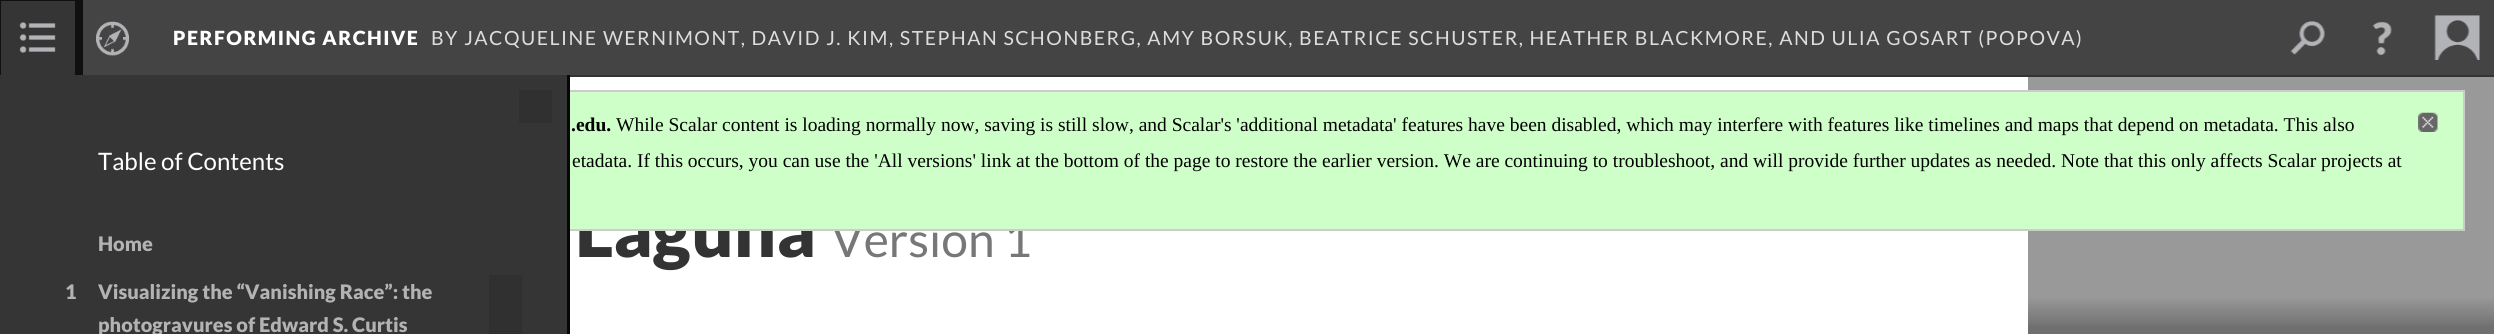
#include <cairo/cairo.h>
#include <math.h>
#include <stddef.h>


static void draw_spaced(cairo_t *cr, double x, double y, const char *s, double letter, double word) {
  cairo_move_to(cr, x, y);
  while (*s) {
    char ch[5] = {0};
    int n = 0;
    do ch[n++] = *s++; while ((*s & 0xC0) == 0x80);
    cairo_show_text(cr, ch);
    cairo_rel_move_to(cr, letter + word * (*ch == ' '), 0);
  }
}

static void draw_image(cairo_t *cr, const char *path, double x, double y, double w, double h) {
  cairo_surface_t *image = cairo_image_surface_create_from_png(path);
  cairo_save(cr);
  cairo_set_source_surface(cr, image, x, y);
  cairo_rectangle(cr, x, y, w, h);
  cairo_fill(cr);
  cairo_restore(cr);
  cairo_surface_destroy(image);
}

static void draw(cairo_t *cr) {
  cairo_set_source_rgb(cr, 0, 0, 0);
  cairo_paint(cr);
  cairo_set_source_rgb(cr, 68 / 255.0, 68 / 255.0, 68 / 255.0);
  cairo_rectangle(cr, 83, 0, 2411, 75);
  cairo_fill(cr);
  cairo_set_source_rgb(cr, 51 / 255.0, 51 / 255.0, 51 / 255.0);
  cairo_rectangle(cr, 570, 75, 1924, 2);
  cairo_fill(cr);
  draw_image(cr, "images/1.png", 2290, 21, 35, 34);
  draw_image(cr, "images/2.png", 2372, 21, 20, 34);
  draw_image(cr, "images/3.png", 2434, 15, 46, 45);
  draw_image(cr, "images/4.png", 96, 21, 34, 35);
  cairo_set_source_rgb(cr, 53 / 255.0, 53 / 255.0, 53 / 255.0);
  cairo_rectangle(cr, 1, 1, 74, 74);
  cairo_fill(cr);
  draw_image(cr, "images/5.png", 19, 22, 37, 31);
  cairo_rectangle(cr, -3, -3, 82, 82);
  cairo_set_source_rgb(cr, 16 / 255.0, 16 / 255.0, 16 / 255.0);
  cairo_set_line_width(cr, 8);
  cairo_stroke(cr);
  draw_image(cr, "images/6.png", 2028, 77, 466, 257);
  cairo_set_source_rgb(cr, 1, 1, 1);
  cairo_rectangle(cr, 570, 77, 1458, 257);
  cairo_fill(cr);
  cairo_select_font_face(cr, "Lato Black", CAIRO_FONT_SLANT_NORMAL, CAIRO_FONT_WEIGHT_NORMAL);
  cairo_set_font_size(cr, 19.5);
  draw_spaced(cr, 173, 45, "PERFORMING ARCHIVE", 1.5, 0);
  cairo_select_font_face(cr, "Lato", CAIRO_FONT_SLANT_NORMAL, CAIRO_FONT_WEIGHT_NORMAL);
  cairo_set_source_rgb(cr, 221 / 255.0, 221 / 255.0, 223 / 255.0);
  draw_spaced(cr, 431, 45, "BY JACQUELINE WERNIMONT, DAVID J. KIM, STEPHAN SCHONBERG, AMY BORSUK, BEATRICE SCHUSTER, HEATHER BLACKMORE, AND ULIA GOSART (POPOVA)", 1.5, 0);
  cairo_select_font_face(cr, "Lato Black", CAIRO_FONT_SLANT_NORMAL, CAIRO_FONT_WEIGHT_NORMAL);
  cairo_set_font_size(cr, 73.5);
  cairo_set_source_rgb(cr, 51 / 255.0, 51 / 255.0, 51 / 255.0);
  cairo_move_to(cr, 575, 257);
  cairo_show_text(cr, "Laguna");
  cairo_select_font_face(cr, "Lato", CAIRO_FONT_SLANT_NORMAL, CAIRO_FONT_WEIGHT_NORMAL);
  cairo_set_font_size(cr, 48);
  cairo_set_source_rgb(cr, 119 / 255.0, 119 / 255.0, 119 / 255.0);
  cairo_move_to(cr, 831, 257);
  cairo_show_text(cr, "Version 1");
  cairo_set_source_rgb(cr, 206 / 255.0, 1, 200 / 255.0);
  cairo_rectangle(cr, 570, 92, 1893, 137);
  cairo_fill(cr);
  cairo_rectangle(cr, 16, 91, 2448, 139);
  cairo_set_source_rgb(cr, 204 / 255.0, 204 / 255.0, 204 / 255.0);
  cairo_set_line_width(cr, 2);
  cairo_stroke(cr);
  cairo_set_source_rgb(cr, 53 / 255.0, 53 / 255.0, 53 / 255.0);
  cairo_rectangle(cr, 0, 75, 567, 259);
  cairo_fill(cr);
  cairo_set_source_rgb(cr, 48 / 255.0, 48 / 255.0, 48 / 255.0);
  cairo_rectangle(cr, 519, 90, 33, 33);
  cairo_fill(cr);
  cairo_rectangle(cr, 489, 275, 33, 59);
  cairo_fill(cr);
  cairo_select_font_face(cr, "Lato Black", CAIRO_FONT_SLANT_NORMAL, CAIRO_FONT_WEIGHT_NORMAL);
  cairo_set_font_size(cr, 20);
  cairo_set_source_rgb(cr, 179 / 255.0, 179 / 255.0, 179 / 255.0);
  cairo_move_to(cr, 65, 299);
  cairo_show_text(cr, "1");
  cairo_move_to(cr, 98, 332);
  cairo_show_text(cr, "photogravures of Edward S. Curtis");
  cairo_move_to(cr, 98, 299);
  cairo_show_text(cr, "Visualizing the “Vanishing Race”: the");
  cairo_move_to(cr, 98, 251);
  cairo_show_text(cr, "Home");
  cairo_select_font_face(cr, "Lato", CAIRO_FONT_SLANT_NORMAL, CAIRO_FONT_WEIGHT_NORMAL);
  cairo_set_font_size(cr, 24);
  cairo_set_source_rgb(cr, 1, 1, 1);
  cairo_move_to(cr, 98, 170);
  cairo_show_text(cr, "Table of Contents");
  cairo_set_source_rgb(cr, 7 / 255.0, 7 / 255.0, 7 / 255.0);
  cairo_rectangle(cr, 567, 75, 3, 259);
  cairo_fill(cr);
  cairo_select_font_face(cr, "Liberation Serif", CAIRO_FONT_SLANT_NORMAL, CAIRO_FONT_WEIGHT_NORMAL);
  cairo_set_font_size(cr, 19.5);
  cairo_set_source_rgb(cr, 0, 0, 0);
  cairo_move_to(cr, 572, 167);
  cairo_show_text(cr, "etadata. If this occurs, you can use the 'All versions' link at the bottom of the page to restore the earlier version. We are continuing to troubleshoot, and will provide further updates as needed. Note that this only affects Scalar projects at");
  cairo_move_to(cr, 616, 131);
  cairo_show_text(cr, "While Scalar content is loading normally now, saving is still slow, and Scalar's 'additional metadata' features have been disabled, which may interfere with features like timelines and maps that depend on metadata. This also");
  cairo_select_font_face(cr, "Liberation Serif", CAIRO_FONT_SLANT_NORMAL, CAIRO_FONT_WEIGHT_BOLD);
  cairo_move_to(cr, 571, 131);
  cairo_show_text(cr, ".edu.");
  draw_image(cr, "images/7.png", 2418, 112, 20, 20);
}

int main(void) {
  cairo_surface_t *surface = cairo_image_surface_create(CAIRO_FORMAT_RGB24, 2494, 334);
  cairo_t *cr = cairo_create(surface);
  cairo_font_options_t *options = cairo_font_options_create();
  cairo_font_options_set_hint_metrics(options, CAIRO_HINT_METRICS_OFF);
  cairo_font_options_set_hint_style(options, CAIRO_HINT_STYLE_NONE);
  cairo_set_font_options(cr, options);
  cairo_set_miter_limit(cr, 4);
  draw(cr);
  cairo_surface_write_to_png(surface, "out.png");
  cairo_font_options_destroy(options);
  cairo_destroy(cr);
  cairo_surface_destroy(surface);
  return 0;
}
